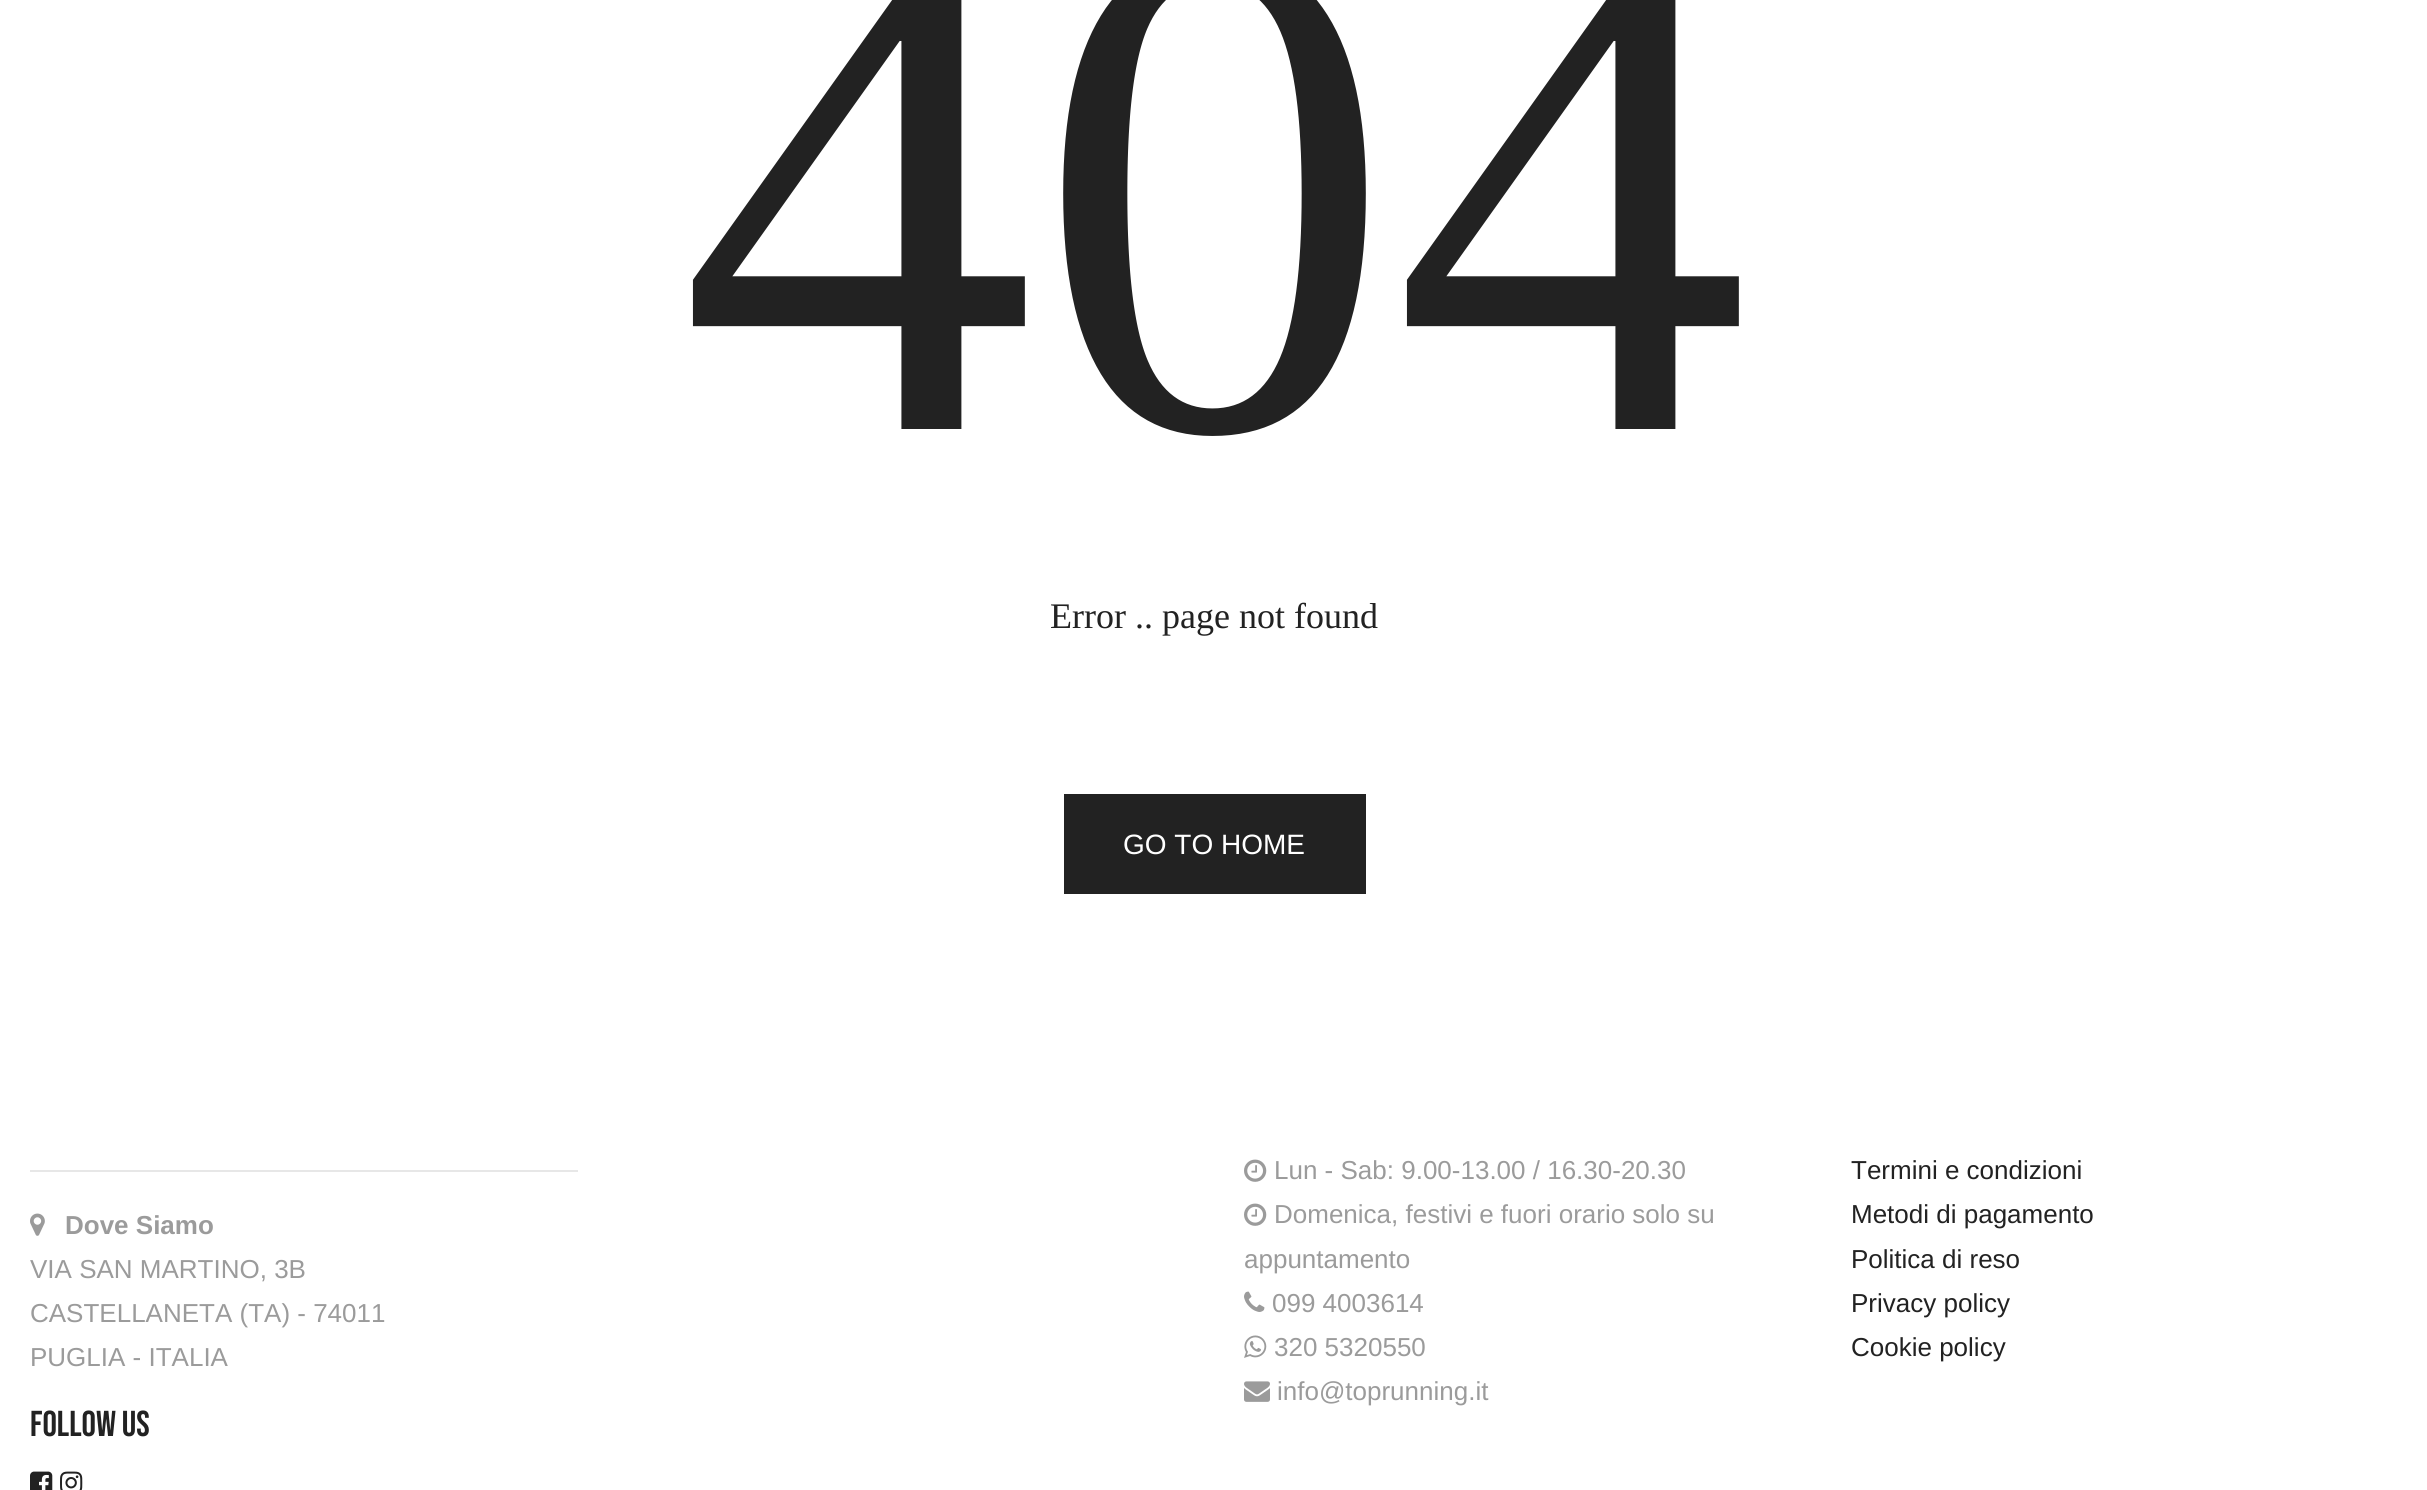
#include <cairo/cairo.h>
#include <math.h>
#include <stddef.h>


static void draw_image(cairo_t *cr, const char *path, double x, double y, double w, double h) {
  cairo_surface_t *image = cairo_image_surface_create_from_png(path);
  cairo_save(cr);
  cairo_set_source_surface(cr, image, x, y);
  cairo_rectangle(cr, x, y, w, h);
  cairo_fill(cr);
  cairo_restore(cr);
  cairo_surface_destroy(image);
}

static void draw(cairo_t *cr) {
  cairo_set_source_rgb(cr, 1, 1, 1);
  cairo_paint(cr);
  cairo_set_source_rgb(cr, 34 / 255.0, 34 / 255.0, 34 / 255.0);
  cairo_rectangle(cr, 1064, 794, 302, 100);
  cairo_fill(cr);
  cairo_set_source_rgb(cr, 231 / 255.0, 231 / 255.0, 231 / 255.0);
  cairo_rectangle(cr, 30, 1170, 548, 2);
  cairo_fill(cr);
  draw_image(cr, "images/1.png", 30, 1213, 15, 23);
  draw_image(cr, "images/2.png", 30, 1471, 23, 19);
  draw_image(cr, "images/3.png", 60, 1471, 23, 19);
  draw_image(cr, "images/4.png", 1244, 1159, 23, 23);
  draw_image(cr, "images/4.png", 1244, 1203, 23, 23);
  draw_image(cr, "images/5.png", 1244, 1291, 21, 21);
  draw_image(cr, "images/6.png", 1244, 1335, 23, 23);
  draw_image(cr, "images/7.png", 1244, 1381, 26, 21);
  cairo_select_font_face(cr, "Liberation Serif", CAIRO_FONT_SLANT_NORMAL, CAIRO_FONT_WEIGHT_NORMAL);
  cairo_set_font_size(cr, 714);
  cairo_set_source_rgb(cr, 34 / 255.0, 34 / 255.0, 34 / 255.0);
  cairo_move_to(cr, 679, 429);
  cairo_show_text(cr, "404");
  cairo_set_font_size(cr, 36);
  cairo_move_to(cr, 1050, 628);
  cairo_show_text(cr, "Error .. page not found");
  cairo_select_font_face(cr, "Liberation Sans", CAIRO_FONT_SLANT_NORMAL, CAIRO_FONT_WEIGHT_NORMAL);
  cairo_set_font_size(cr, 28);
  cairo_set_source_rgb(cr, 1, 1, 1);
  cairo_move_to(cr, 1123, 854);
  cairo_show_text(cr, "GO TO HOME");
  cairo_select_font_face(cr, "Liberation Sans", CAIRO_FONT_SLANT_NORMAL, CAIRO_FONT_WEIGHT_BOLD);
  cairo_set_font_size(cr, 26);
  cairo_set_source_rgb(cr, 155 / 255.0, 155 / 255.0, 155 / 255.0);
  cairo_move_to(cr, 65, 1234);
  cairo_show_text(cr, "Dove Siamo");
  cairo_select_font_face(cr, "Liberation Sans", CAIRO_FONT_SLANT_NORMAL, CAIRO_FONT_WEIGHT_NORMAL);
  cairo_move_to(cr, 30, 1278);
  cairo_show_text(cr, "VIA SAN MARTINO, 3B");
  cairo_move_to(cr, 30, 1322);
  cairo_show_text(cr, "CASTELLANETA (TA) - 74011");
  cairo_move_to(cr, 30, 1366);
  cairo_show_text(cr, "PUGLIA - ITALIA");
  cairo_select_font_face(cr, "Bebas Neue", CAIRO_FONT_SLANT_NORMAL, CAIRO_FONT_WEIGHT_NORMAL);
  cairo_set_font_size(cr, 36);
  cairo_set_source_rgb(cr, 34 / 255.0, 34 / 255.0, 34 / 255.0);
  cairo_move_to(cr, 30, 1436);
  cairo_show_text(cr, "Follow us");
  cairo_select_font_face(cr, "Liberation Sans", CAIRO_FONT_SLANT_NORMAL, CAIRO_FONT_WEIGHT_NORMAL);
  cairo_set_font_size(cr, 26);
  cairo_set_source_rgb(cr, 155 / 255.0, 155 / 255.0, 155 / 255.0);
  cairo_move_to(cr, 1274, 1179);
  cairo_show_text(cr, "Lun - Sab: 9.00-13.00 / 16.30-20.30");
  cairo_move_to(cr, 1274, 1223);
  cairo_show_text(cr, "Domenica, festivi e fuori orario solo su");
  cairo_move_to(cr, 1244, 1268);
  cairo_show_text(cr, "appuntamento");
  cairo_move_to(cr, 1272, 1312);
  cairo_show_text(cr, "099 4003614");
  cairo_move_to(cr, 1274, 1356);
  cairo_show_text(cr, "320 5320550");
  cairo_move_to(cr, 1277, 1400);
  cairo_show_text(cr, "info@toprunning.it");
  cairo_set_source_rgb(cr, 34 / 255.0, 34 / 255.0, 34 / 255.0);
  cairo_move_to(cr, 1851, 1179);
  cairo_show_text(cr, "Termini e condizioni");
  cairo_move_to(cr, 1851, 1223);
  cairo_show_text(cr, "Metodi di pagamento");
  cairo_move_to(cr, 1851, 1268);
  cairo_show_text(cr, "Politica di reso");
  cairo_move_to(cr, 1851, 1312);
  cairo_show_text(cr, "Privacy policy");
  cairo_move_to(cr, 1851, 1356);
  cairo_show_text(cr, "Cookie policy");
}

int main(void) {
  cairo_surface_t *surface = cairo_image_surface_create(CAIRO_FORMAT_RGB24, 2427, 1490);
  cairo_t *cr = cairo_create(surface);
  cairo_font_options_t *options = cairo_font_options_create();
  cairo_font_options_set_hint_metrics(options, CAIRO_HINT_METRICS_OFF);
  cairo_font_options_set_hint_style(options, CAIRO_HINT_STYLE_NONE);
  cairo_set_font_options(cr, options);
  cairo_set_miter_limit(cr, 4);
  draw(cr);
  cairo_surface_write_to_png(surface, "out.png");
  cairo_font_options_destroy(options);
  cairo_destroy(cr);
  cairo_surface_destroy(surface);
  return 0;
}
